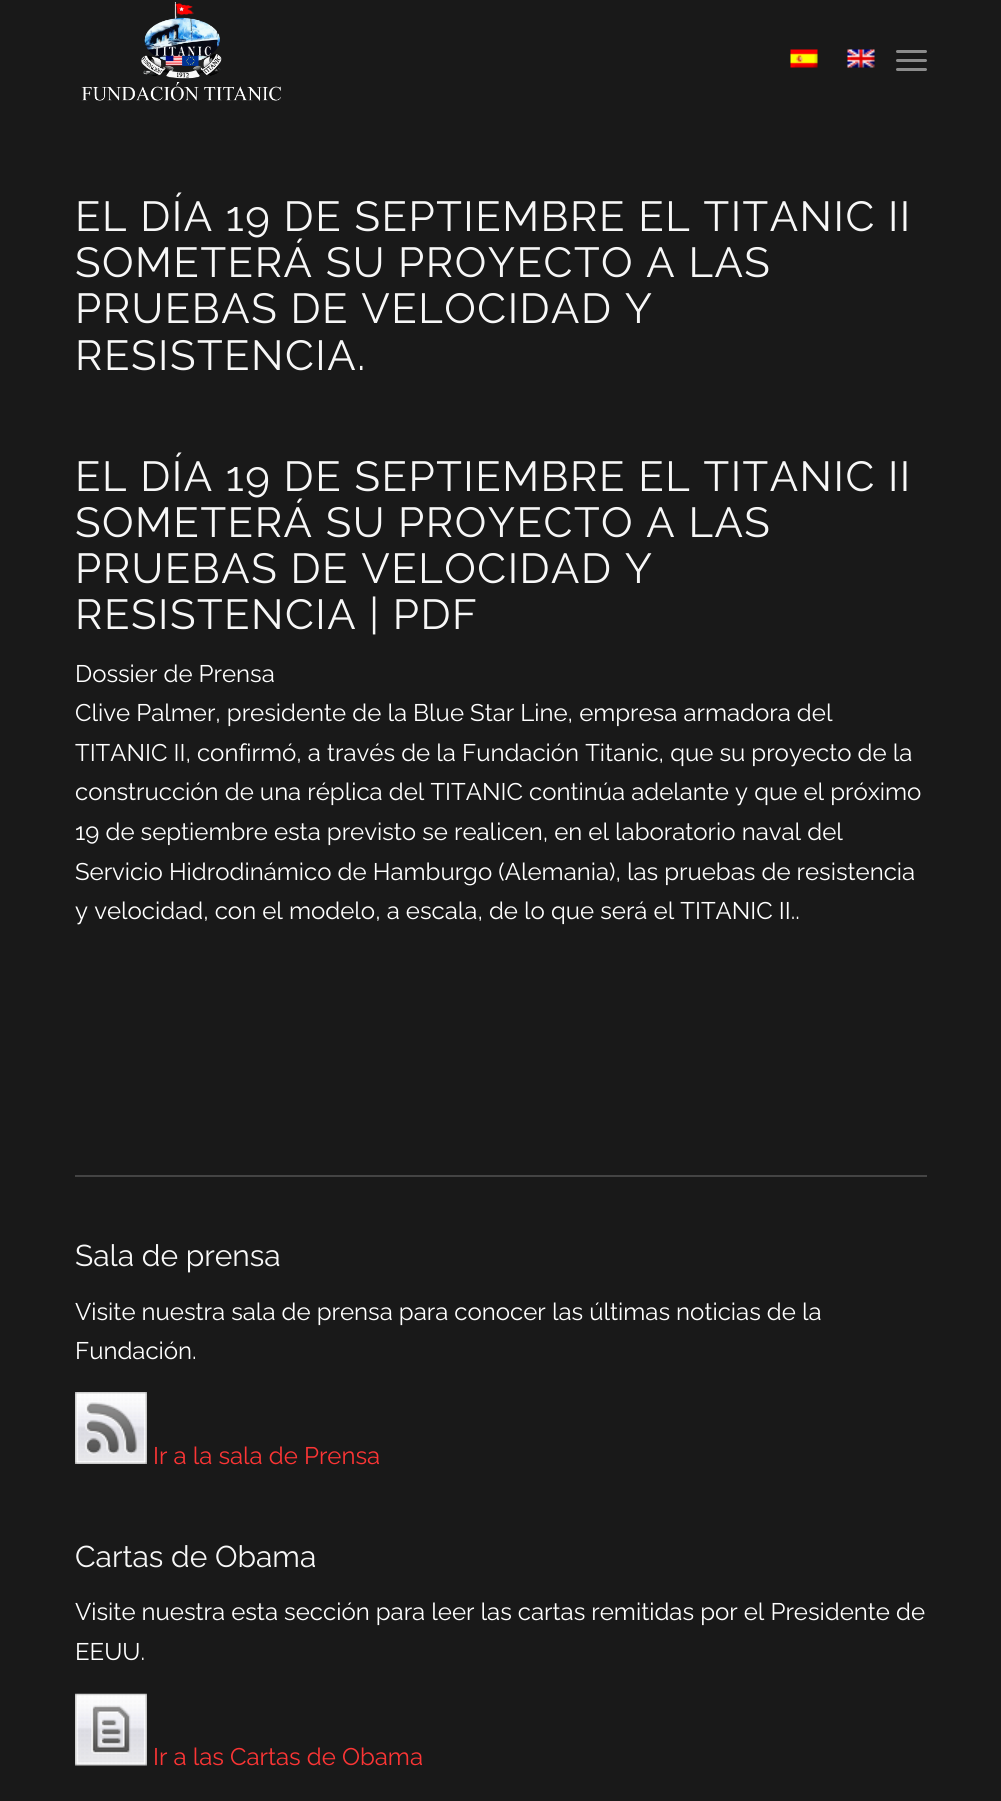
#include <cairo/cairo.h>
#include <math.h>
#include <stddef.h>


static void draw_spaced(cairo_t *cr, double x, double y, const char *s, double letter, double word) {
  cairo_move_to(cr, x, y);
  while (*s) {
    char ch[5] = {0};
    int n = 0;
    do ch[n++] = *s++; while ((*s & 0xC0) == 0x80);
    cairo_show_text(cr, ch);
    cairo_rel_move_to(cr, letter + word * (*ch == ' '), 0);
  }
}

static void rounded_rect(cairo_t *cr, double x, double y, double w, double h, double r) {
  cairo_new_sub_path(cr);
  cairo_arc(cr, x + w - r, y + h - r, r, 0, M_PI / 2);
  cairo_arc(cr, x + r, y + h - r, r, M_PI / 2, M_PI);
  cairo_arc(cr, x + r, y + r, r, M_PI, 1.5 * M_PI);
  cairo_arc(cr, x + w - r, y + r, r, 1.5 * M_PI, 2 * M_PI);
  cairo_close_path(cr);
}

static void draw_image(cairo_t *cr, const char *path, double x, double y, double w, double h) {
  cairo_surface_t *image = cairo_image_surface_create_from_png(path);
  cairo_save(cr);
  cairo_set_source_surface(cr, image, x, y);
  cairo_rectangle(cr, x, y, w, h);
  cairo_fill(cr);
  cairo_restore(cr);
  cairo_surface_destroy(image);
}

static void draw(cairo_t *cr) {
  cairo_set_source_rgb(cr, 25 / 255.0, 25 / 255.0, 25 / 255.0);
  cairo_paint(cr);
  draw_image(cr, "images/1.png", 81, 2, 200, 99);
  draw_image(cr, "images/2.png", 790, 49, 28, 19);
  draw_image(cr, "images/3.png", 847, 49, 28, 19);
  cairo_set_source_rgb(cr, 140 / 255.0, 140 / 255.0, 140 / 255.0);
  rounded_rect(cr, 896, 59, 31, 3, 1.5);
  cairo_fill(cr);
  rounded_rect(cr, 896, 50, 31, 3, 1.5);
  cairo_fill(cr);
  rounded_rect(cr, 896, 68, 31, 3, 1.5);
  cairo_fill(cr);
  cairo_set_source_rgb(cr, 68 / 255.0, 68 / 255.0, 68 / 255.0);
  cairo_rectangle(cr, 75, 1175, 852, 2);
  cairo_fill(cr);
  draw_image(cr, "images/4.png", 75, 1392, 72, 72);
  draw_image(cr, "images/5.png", 75, 1693, 72, 73);
  cairo_select_font_face(cr, "Raleway Thin", CAIRO_FONT_SLANT_NORMAL, CAIRO_FONT_WEIGHT_NORMAL);
  cairo_set_font_size(cr, 42);
  cairo_set_source_rgb(cr, 247 / 255.0, 247 / 255.0, 247 / 255.0);
  draw_spaced(cr, 75, 231, "EL DÍA 19 DE SEPTIEMBRE EL TITANIC II", 1.5, 0);
  draw_spaced(cr, 75, 277, "SOMETERÁ SU PROYECTO A LAS", 1.5, 0);
  draw_spaced(cr, 75, 323, "PRUEBAS DE VELOCIDAD Y", 1.5, 0);
  draw_spaced(cr, 75, 370, "RESISTENCIA.", 1.5, 0);
  draw_spaced(cr, 75, 491, "EL DÍA 19 DE SEPTIEMBRE EL TITANIC II", 1.5, 0);
  draw_spaced(cr, 75, 537, "SOMETERÁ SU PROYECTO A LAS", 1.5, 0);
  draw_spaced(cr, 75, 583, "PRUEBAS DE VELOCIDAD Y", 1.5, 0);
  draw_spaced(cr, 75, 629, "RESISTENCIA | PDF", 1.5, 0);
  cairo_set_font_size(cr, 24);
  cairo_set_source_rgb(cr, 1, 1, 1);
  cairo_move_to(cr, 75, 682);
  cairo_show_text(cr, "Dossier de Prensa");
  cairo_move_to(cr, 75, 721);
  cairo_show_text(cr, "Clive Palmer, presidente de la Blue Star Line, empresa armadora del");
  cairo_move_to(cr, 75, 761);
  cairo_show_text(cr, "TITANIC II, confirmó, a través de la Fundación Titanic, que su proyecto de la");
  cairo_move_to(cr, 75, 800);
  cairo_show_text(cr, "construcción de una réplica del TITANIC continúa adelante y que el próximo");
  cairo_move_to(cr, 75, 840);
  cairo_show_text(cr, "19 de septiembre esta previsto se realicen, en el laboratorio naval del");
  cairo_move_to(cr, 75, 880);
  cairo_show_text(cr, "Servicio Hidrodinámico de Hamburgo (Alemania), las pruebas de resistencia");
  cairo_move_to(cr, 75, 919);
  cairo_show_text(cr, "y velocidad, con el modelo, a escala, de lo que será el TITANIC II..");
  cairo_set_font_size(cr, 30);
  cairo_set_source_rgb(cr, 247 / 255.0, 247 / 255.0, 247 / 255.0);
  cairo_move_to(cr, 75, 1266);
  cairo_show_text(cr, "Sala de prensa");
  cairo_set_font_size(cr, 24);
  cairo_set_source_rgb(cr, 1, 1, 1);
  cairo_move_to(cr, 75, 1320);
  cairo_show_text(cr, "Visite nuestra sala de prensa para conocer las últimas noticias de la");
  cairo_move_to(cr, 75, 1359);
  cairo_show_text(cr, "Fundación.");
  cairo_set_source_rgb(cr, 252 / 255.0, 53 / 255.0, 53 / 255.0);
  cairo_move_to(cr, 153, 1464);
  cairo_show_text(cr, "Ir a la sala de Prensa");
  cairo_set_font_size(cr, 30);
  cairo_set_source_rgb(cr, 247 / 255.0, 247 / 255.0, 247 / 255.0);
  cairo_move_to(cr, 75, 1567);
  cairo_show_text(cr, "Cartas de Obama");
  cairo_set_font_size(cr, 24);
  cairo_set_source_rgb(cr, 1, 1, 1);
  cairo_move_to(cr, 75, 1620);
  cairo_show_text(cr, "Visite nuestra esta sección para leer las cartas remitidas por el Presidente de");
  cairo_move_to(cr, 75, 1660);
  cairo_show_text(cr, "EEUU.");
  cairo_set_source_rgb(cr, 252 / 255.0, 53 / 255.0, 53 / 255.0);
  cairo_move_to(cr, 153, 1765);
  cairo_show_text(cr, "Ir a las Cartas de Obama");
}

int main(void) {
  cairo_surface_t *surface = cairo_image_surface_create(CAIRO_FORMAT_RGB24, 1001, 1801);
  cairo_t *cr = cairo_create(surface);
  cairo_font_options_t *options = cairo_font_options_create();
  cairo_font_options_set_hint_metrics(options, CAIRO_HINT_METRICS_OFF);
  cairo_font_options_set_hint_style(options, CAIRO_HINT_STYLE_NONE);
  cairo_set_font_options(cr, options);
  cairo_set_miter_limit(cr, 4);
  draw(cr);
  cairo_surface_write_to_png(surface, "out.png");
  cairo_font_options_destroy(options);
  cairo_destroy(cr);
  cairo_surface_destroy(surface);
  return 0;
}
